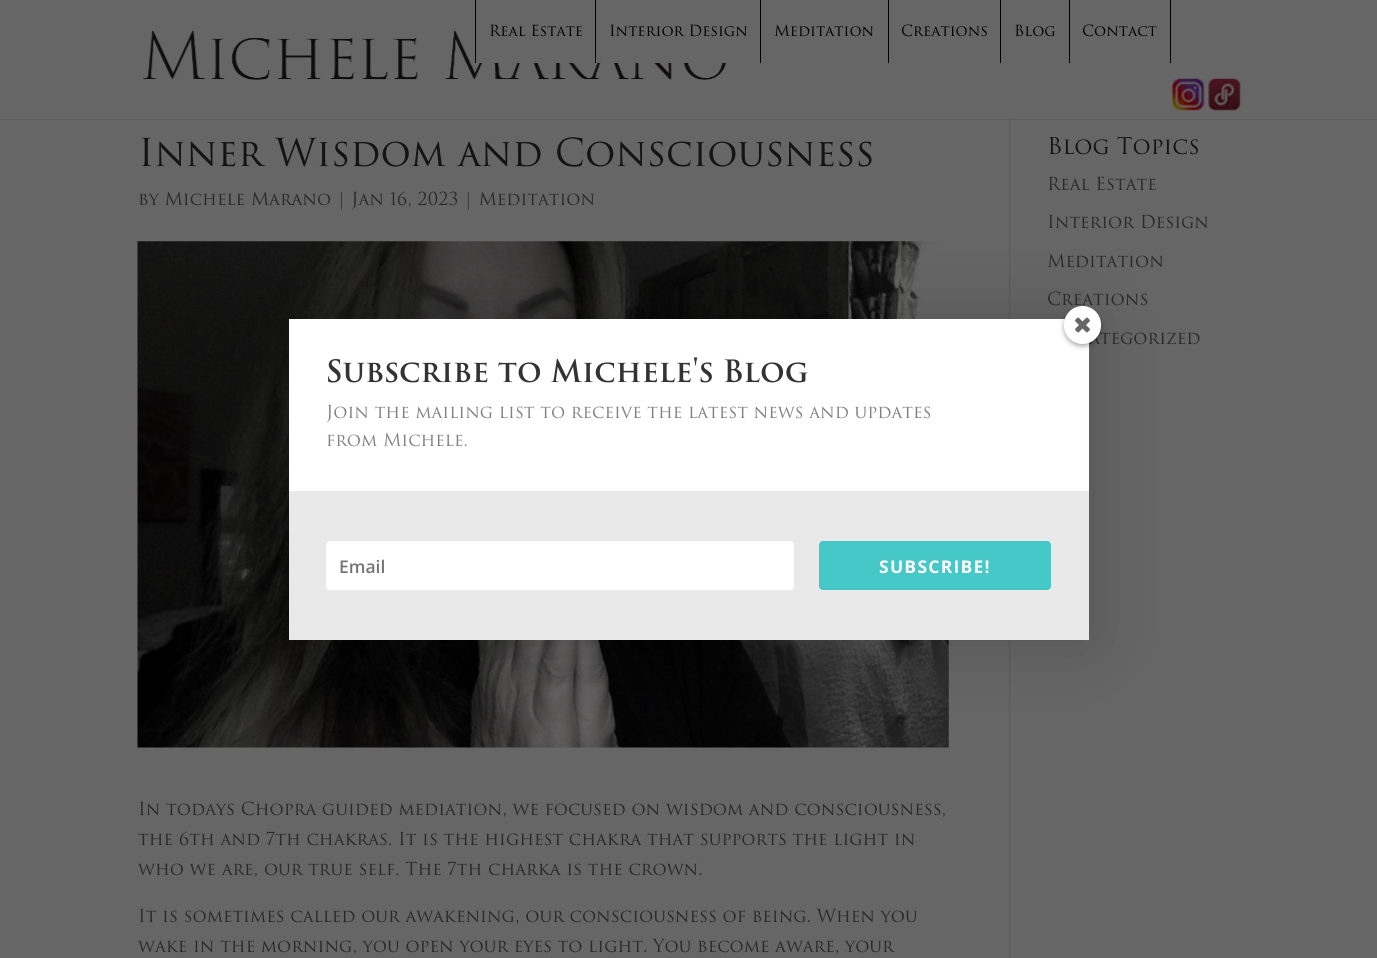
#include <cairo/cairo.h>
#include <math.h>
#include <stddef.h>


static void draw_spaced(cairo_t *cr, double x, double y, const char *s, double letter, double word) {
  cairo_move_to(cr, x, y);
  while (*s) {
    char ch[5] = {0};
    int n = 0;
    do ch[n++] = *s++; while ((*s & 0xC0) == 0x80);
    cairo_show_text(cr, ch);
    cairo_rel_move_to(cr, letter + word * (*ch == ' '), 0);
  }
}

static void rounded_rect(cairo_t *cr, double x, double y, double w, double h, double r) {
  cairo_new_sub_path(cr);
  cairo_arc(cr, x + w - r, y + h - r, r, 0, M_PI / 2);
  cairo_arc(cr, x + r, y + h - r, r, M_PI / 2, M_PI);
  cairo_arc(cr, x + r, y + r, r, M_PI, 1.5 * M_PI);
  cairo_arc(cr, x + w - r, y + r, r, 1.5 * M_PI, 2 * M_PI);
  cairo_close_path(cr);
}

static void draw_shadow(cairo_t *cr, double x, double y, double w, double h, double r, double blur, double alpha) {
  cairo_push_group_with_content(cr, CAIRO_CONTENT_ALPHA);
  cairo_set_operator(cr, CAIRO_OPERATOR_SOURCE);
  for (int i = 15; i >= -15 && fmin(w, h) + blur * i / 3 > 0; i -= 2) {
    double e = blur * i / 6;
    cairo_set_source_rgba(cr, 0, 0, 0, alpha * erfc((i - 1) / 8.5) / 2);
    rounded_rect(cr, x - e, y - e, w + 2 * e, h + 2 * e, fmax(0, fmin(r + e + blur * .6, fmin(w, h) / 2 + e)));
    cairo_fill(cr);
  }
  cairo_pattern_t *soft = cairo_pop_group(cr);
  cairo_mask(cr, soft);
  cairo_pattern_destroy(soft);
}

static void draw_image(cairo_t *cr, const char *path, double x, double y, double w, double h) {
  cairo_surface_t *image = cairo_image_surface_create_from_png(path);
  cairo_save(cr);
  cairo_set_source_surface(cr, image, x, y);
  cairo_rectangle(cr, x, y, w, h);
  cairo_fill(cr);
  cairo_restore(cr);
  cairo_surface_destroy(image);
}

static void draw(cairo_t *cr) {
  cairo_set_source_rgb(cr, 102 / 255.0, 102 / 255.0, 102 / 255.0);
  cairo_paint(cr);
  cairo_set_source_rgb(cr, 90 / 255.0, 90 / 255.0, 90 / 255.0);
  cairo_rectangle(cr, 1009, 119, 1, 839);
  cairo_fill(cr);
  cairo_set_source_rgba(cr, 0, 0, 0, 0.1);
  cairo_new_path(cr);
  cairo_move_to(cr, 0, 119);
  cairo_line_to(cr, 0, 120);
  cairo_line_to(cr, 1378, 120);
  cairo_line_to(cr, 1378, 1);
  cairo_line_to(cr, 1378, 119);
  cairo_close_path(cr);
  cairo_fill(cr);
  draw_image(cr, "images/1.png", 143, 30, 584, 50);
  cairo_set_source_rgb(cr, 102 / 255.0, 102 / 255.0, 102 / 255.0);
  cairo_rectangle(cr, 479, 30, 248, 33);
  cairo_fill(cr);
  cairo_set_source_rgb(cr, 0, 0, 0);
  cairo_rectangle(cr, 475, 0, 1, 63);
  cairo_fill(cr);
  cairo_rectangle(cr, 595, 0, 1, 63);
  cairo_fill(cr);
  cairo_rectangle(cr, 760, 0, 1, 63);
  cairo_fill(cr);
  cairo_rectangle(cr, 888, 0, 1, 63);
  cairo_fill(cr);
  cairo_rectangle(cr, 1000, 0, 1, 63);
  cairo_fill(cr);
  cairo_rectangle(cr, 1170, 0, 1, 63);
  cairo_fill(cr);
  cairo_rectangle(cr, 1069, 0, 1, 63);
  cairo_fill(cr);
  draw_image(cr, "images/2.png", 1172, 78, 33, 33);
  draw_image(cr, "images/3.png", 1208, 78, 33, 33);
  draw_image(cr, "images/4.png", 137, 241, 812, 507);
  cairo_set_source_rgb(cr, 0, 0, 0);
  draw_shadow(cr, 289, 319, 800, 321, 0, 37.5, 0.2);
  cairo_set_source_rgb(cr, 233 / 255.0, 233 / 255.0, 233 / 255.0);
  cairo_rectangle(cr, 289, 491, 800, 149);
  cairo_fill(cr);
  cairo_set_source_rgb(cr, 1, 1, 1);
  rounded_rect(cr, 326, 541, 468, 49, 4);
  cairo_fill(cr);
  cairo_set_source_rgb(cr, 70 / 255.0, 200 / 255.0, 200 / 255.0);
  rounded_rect(cr, 819, 541, 232, 49, 4);
  cairo_fill(cr);
  cairo_select_font_face(cr, "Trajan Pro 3", CAIRO_FONT_SLANT_NORMAL, CAIRO_FONT_WEIGHT_NORMAL);
  cairo_set_font_size(cr, 15);
  cairo_set_source_rgb(cr, 0, 0, 0);
  cairo_move_to(cr, 489, 36);
  cairo_show_text(cr, "Real Estate");
  cairo_move_to(cr, 609, 36);
  cairo_show_text(cr, "Interior Design");
  cairo_move_to(cr, 774, 36);
  cairo_show_text(cr, "Meditation");
  cairo_move_to(cr, 901, 36);
  cairo_show_text(cr, "Creations");
  cairo_move_to(cr, 1014, 36);
  cairo_show_text(cr, "Blog");
  cairo_move_to(cr, 1082, 36);
  cairo_show_text(cr, "Contact");
  cairo_set_font_size(cr, 37.5);
  cairo_set_source_rgb(cr, 20 / 255.0, 20 / 255.0, 20 / 255.0);
  cairo_move_to(cr, 138, 166);
  cairo_show_text(cr, "Inner Wisdom and Consciousness");
  cairo_set_font_size(cr, 17.5);
  cairo_set_source_rgb(cr, 41 / 255.0, 41 / 255.0, 41 / 255.0);
  cairo_move_to(cr, 138, 205);
  cairo_show_text(cr, "by Michele Marano | Jan 16, 2023 | Meditation");
  cairo_move_to(cr, 138, 815);
  cairo_show_text(cr, "In todays Chopra guided mediation, we focused on wisdom and consciousness,");
  cairo_move_to(cr, 138, 845);
  cairo_show_text(cr, "the 6th and 7th chakras. It is the highest chakra that supports the light in");
  cairo_move_to(cr, 138, 875);
  cairo_show_text(cr, "who we are, our true self. The 7th charka is the crown.");
  cairo_move_to(cr, 138, 922);
  cairo_show_text(cr, "It is sometimes called our awakening, our consciousness of being. When you");
  cairo_move_to(cr, 138, 952);
  cairo_show_text(cr, "wake in the morning, you open your eyes to light. You become aware, your");
  cairo_set_font_size(cr, 22.5);
  cairo_set_source_rgb(cr, 20 / 255.0, 20 / 255.0, 20 / 255.0);
  cairo_move_to(cr, 1047, 154);
  cairo_show_text(cr, "Blog Topics");
  cairo_set_font_size(cr, 17.5);
  cairo_set_source_rgb(cr, 41 / 255.0, 41 / 255.0, 41 / 255.0);
  cairo_move_to(cr, 1047, 190);
  cairo_show_text(cr, "Real Estate");
  cairo_move_to(cr, 1047, 228);
  cairo_show_text(cr, "Interior Design");
  cairo_move_to(cr, 1047, 267);
  cairo_show_text(cr, "Meditation");
  cairo_move_to(cr, 1047, 305);
  cairo_show_text(cr, "Creations");
  cairo_move_to(cr, 1089, 344);
  cairo_show_text(cr, "ategorized");
  cairo_set_source_rgb(cr, 1, 1, 1);
  cairo_rectangle(cr, 289, 319, 800, 172);
  cairo_fill(cr);
  cairo_set_source_rgb(cr, 0, 0, 0);
  draw_shadow(cr, 1064, 309, 37, 37, 18.5, 2.5, 0.34);
  cairo_set_source_rgb(cr, 1, 1, 1);
  rounded_rect(cr, 1064, 306, 37, 38, 18.5);
  cairo_fill(cr);
  draw_image(cr, "images/5.png", 1075, 317, 15, 16);
  cairo_select_font_face(cr, "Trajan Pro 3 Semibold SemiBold", CAIRO_FONT_SLANT_NORMAL, CAIRO_FONT_WEIGHT_NORMAL);
  cairo_set_font_size(cr, 30);
  cairo_set_source_rgb(cr, 51 / 255.0, 51 / 255.0, 51 / 255.0);
  cairo_move_to(cr, 326, 382);
  cairo_show_text(cr, "Subscribe to Michele's Blog");
  cairo_select_font_face(cr, "Trajan Pro 3", CAIRO_FONT_SLANT_NORMAL, CAIRO_FONT_WEIGHT_NORMAL);
  cairo_set_font_size(cr, 17.5);
  cairo_set_source_rgb(cr, 128 / 255.0, 128 / 255.0, 128 / 255.0);
  cairo_move_to(cr, 326, 418);
  cairo_show_text(cr, "Join the mailing list to receive the latest news and updates");
  cairo_move_to(cr, 326, 446);
  cairo_show_text(cr, "from Michele.");
  cairo_select_font_face(cr, "Open Sans SemiBold", CAIRO_FONT_SLANT_NORMAL, CAIRO_FONT_WEIGHT_NORMAL);
  cairo_set_source_rgb(cr, 117 / 255.0, 117 / 255.0, 117 / 255.0);
  cairo_move_to(cr, 339, 573);
  cairo_show_text(cr, "Email");
  cairo_select_font_face(cr, "Open Sans", CAIRO_FONT_SLANT_NORMAL, CAIRO_FONT_WEIGHT_BOLD);
  cairo_set_source_rgb(cr, 1, 1, 1);
  draw_spaced(cr, 879, 573, "SUBSCRIBE!", 1.25, 0);
}

int main(void) {
  cairo_surface_t *surface = cairo_image_surface_create(CAIRO_FORMAT_RGB24, 1377, 958);
  cairo_t *cr = cairo_create(surface);
  cairo_font_options_t *options = cairo_font_options_create();
  cairo_font_options_set_hint_metrics(options, CAIRO_HINT_METRICS_OFF);
  cairo_font_options_set_hint_style(options, CAIRO_HINT_STYLE_NONE);
  cairo_set_font_options(cr, options);
  cairo_set_miter_limit(cr, 4);
  draw(cr);
  cairo_surface_write_to_png(surface, "out.png");
  cairo_font_options_destroy(options);
  cairo_destroy(cr);
  cairo_surface_destroy(surface);
  return 0;
}
